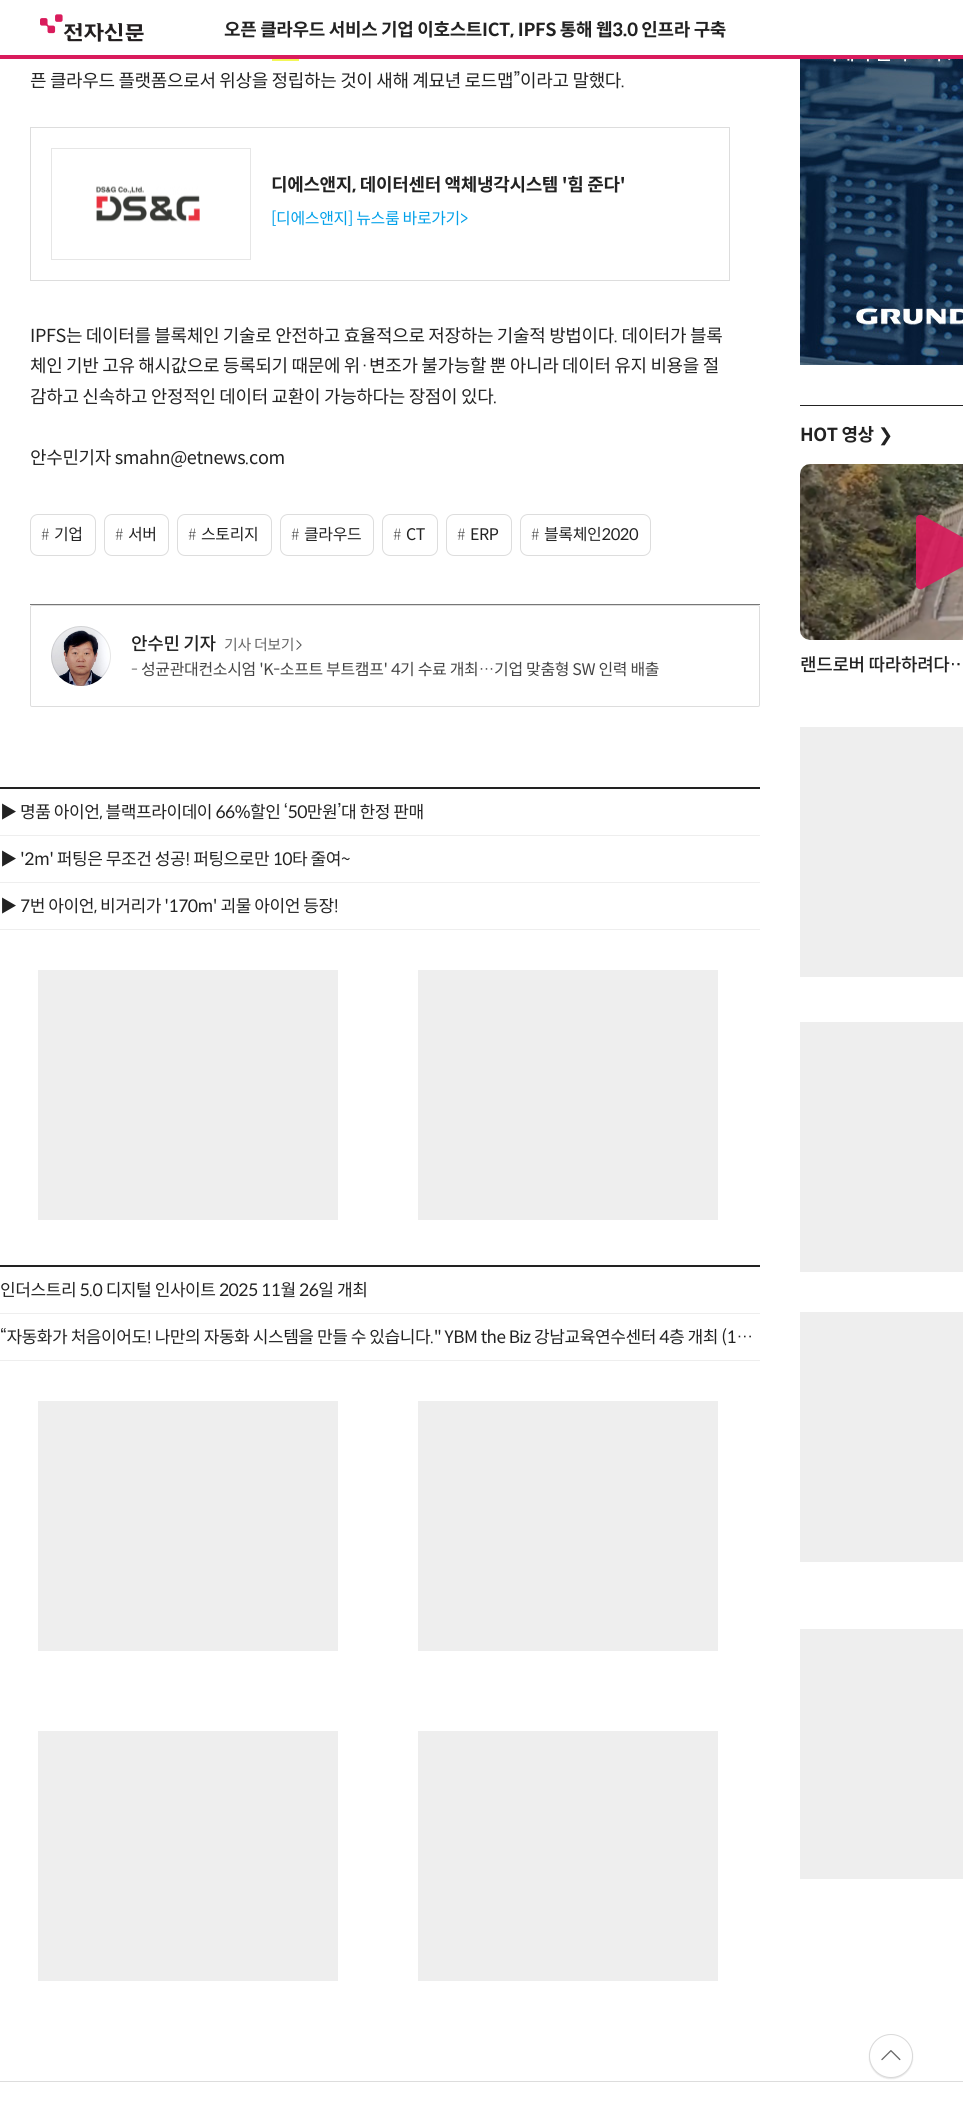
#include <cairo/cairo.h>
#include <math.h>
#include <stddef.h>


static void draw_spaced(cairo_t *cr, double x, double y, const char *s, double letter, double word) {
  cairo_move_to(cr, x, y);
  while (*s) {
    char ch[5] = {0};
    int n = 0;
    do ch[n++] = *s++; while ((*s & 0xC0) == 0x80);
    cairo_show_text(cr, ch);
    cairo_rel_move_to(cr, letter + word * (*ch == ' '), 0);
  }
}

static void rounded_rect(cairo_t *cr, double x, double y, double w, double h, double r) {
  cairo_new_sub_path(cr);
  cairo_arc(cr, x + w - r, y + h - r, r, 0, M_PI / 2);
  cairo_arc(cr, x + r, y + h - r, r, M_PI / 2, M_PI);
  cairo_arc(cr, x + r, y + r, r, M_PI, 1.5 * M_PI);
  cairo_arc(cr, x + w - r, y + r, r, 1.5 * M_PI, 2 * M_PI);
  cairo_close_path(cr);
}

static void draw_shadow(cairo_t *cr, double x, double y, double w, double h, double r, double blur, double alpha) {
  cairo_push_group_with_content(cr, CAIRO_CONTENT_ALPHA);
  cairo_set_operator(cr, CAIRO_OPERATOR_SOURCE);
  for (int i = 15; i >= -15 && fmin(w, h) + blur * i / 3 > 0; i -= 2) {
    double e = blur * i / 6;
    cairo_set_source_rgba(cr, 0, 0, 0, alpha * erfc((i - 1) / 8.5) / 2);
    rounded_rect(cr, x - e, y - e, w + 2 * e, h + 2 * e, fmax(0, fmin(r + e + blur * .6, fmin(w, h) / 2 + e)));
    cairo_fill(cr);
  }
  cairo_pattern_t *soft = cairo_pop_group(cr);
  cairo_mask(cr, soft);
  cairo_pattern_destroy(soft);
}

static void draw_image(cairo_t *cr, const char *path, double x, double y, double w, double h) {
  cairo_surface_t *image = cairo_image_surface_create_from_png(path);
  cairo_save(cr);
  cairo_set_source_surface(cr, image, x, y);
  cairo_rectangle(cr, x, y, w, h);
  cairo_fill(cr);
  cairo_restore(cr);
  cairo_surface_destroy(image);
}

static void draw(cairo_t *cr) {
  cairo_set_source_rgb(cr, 1, 1, 1);
  cairo_paint(cr);
  draw_image(cr, "images/1.png", 40, 14, 104, 28);
  cairo_set_source_rgb(cr, 217 / 255.0, 27 / 255.0, 92 / 255.0);
  cairo_rectangle(cr, 0, 55, 963, 4);
  cairo_fill(cr);
  cairo_set_source_rgb(cr, 243 / 255.0, 247 / 255.0, 88 / 255.0);
  cairo_rectangle(cr, 272, 59, 27, 2);
  cairo_fill(cr);
  cairo_rectangle(cr, 30.5, 127.5, 699, 153);
  cairo_set_source_rgb(cr, 221 / 255.0, 221 / 255.0, 221 / 255.0);
  cairo_set_line_width(cr, 1);
  cairo_stroke(cr);
  draw_image(cr, "images/2.png", 96, 186, 104, 36);
  cairo_rectangle(cr, 51.5, 148.5, 199, 111);
  cairo_set_source_rgb(cr, 230 / 255.0, 230 / 255.0, 230 / 255.0);
  cairo_stroke(cr);
  rounded_rect(cr, 30.5, 514.5, 65, 41, 7.5);
  cairo_set_source_rgb(cr, 221 / 255.0, 221 / 255.0, 221 / 255.0);
  cairo_stroke(cr);
  rounded_rect(cr, 104.5, 514.5, 64, 41, 7.5);
  cairo_stroke(cr);
  rounded_rect(cr, 177.5, 514.5, 94, 41, 7.5);
  cairo_stroke(cr);
  rounded_rect(cr, 280.5, 514.5, 93, 41, 7.5);
  cairo_stroke(cr);
  rounded_rect(cr, 382.5, 514.5, 55, 41, 7.5);
  cairo_stroke(cr);
  rounded_rect(cr, 446.5, 514.5, 65, 41, 7.5);
  cairo_stroke(cr);
  rounded_rect(cr, 520.5, 514.5, 130, 41, 7.5);
  cairo_stroke(cr);
  cairo_set_source_rgb(cr, 119 / 255.0, 119 / 255.0, 119 / 255.0);
  cairo_rectangle(cr, 30, 604, 730, 1);
  cairo_fill(cr);
  rounded_rect(cr, 30.5, 605.5, 729, 101, 1.5);
  cairo_set_source_rgb(cr, 221 / 255.0, 221 / 255.0, 221 / 255.0);
  cairo_stroke(cr);
  draw_image(cr, "images/3.png", 51, 626, 58, 60);
  cairo_arc(cr, 81, 656, 29.5, 0, 2 * M_PI);
  cairo_set_source_rgba(cr, 0, 0, 0, 0.1);
  cairo_stroke(cr);
  draw_image(cr, "images/4.png", 296, 640, 6, 10);
  cairo_set_source_rgb(cr, 34 / 255.0, 34 / 255.0, 34 / 255.0);
  cairo_rectangle(cr, 0, 787, 760, 2);
  cairo_fill(cr);
  cairo_set_source_rgb(cr, 238 / 255.0, 238 / 255.0, 238 / 255.0);
  cairo_rectangle(cr, 0, 835, 760, 1);
  cairo_fill(cr);
  cairo_rectangle(cr, 0, 882, 760, 1);
  cairo_fill(cr);
  cairo_rectangle(cr, 0, 929, 760, 1);
  cairo_fill(cr);
  cairo_rectangle(cr, 38, 970, 300, 250);
  cairo_fill(cr);
  cairo_rectangle(cr, 418, 970, 300, 250);
  cairo_fill(cr);
  cairo_set_source_rgb(cr, 34 / 255.0, 34 / 255.0, 34 / 255.0);
  cairo_rectangle(cr, 0, 1265, 760, 2);
  cairo_fill(cr);
  cairo_set_source_rgb(cr, 238 / 255.0, 238 / 255.0, 238 / 255.0);
  cairo_rectangle(cr, 0, 1313, 760, 1);
  cairo_fill(cr);
  cairo_rectangle(cr, 0, 1360, 760, 1);
  cairo_fill(cr);
  cairo_rectangle(cr, 38, 1401, 300, 250);
  cairo_fill(cr);
  cairo_rectangle(cr, 418, 1401, 300, 250);
  cairo_fill(cr);
  cairo_rectangle(cr, 38, 1731, 300, 250);
  cairo_fill(cr);
  cairo_rectangle(cr, 418, 1731, 300, 250);
  cairo_fill(cr);
  draw_image(cr, "images/5.png", 800, 59, 163, 306);
  cairo_set_source_rgb(cr, 34 / 255.0, 34 / 255.0, 34 / 255.0);
  cairo_rectangle(cr, 800, 405, 163, 1);
  cairo_fill(cr);
  draw_image(cr, "images/6.png", 800, 464, 163, 176);
  cairo_set_source_rgba(cr, 217 / 255.0, 27 / 255.0, 92 / 255.0, 0.9);
  cairo_new_path(cr);
  cairo_move_to(cr, 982, 548);
  cairo_line_to(cr, 922, 515);
  cairo_curve_to(cr, 919, 514, 916, 516, 916, 519);
  cairo_line_to(cr, 916, 585);
  cairo_curve_to(cr, 916, 588, 919, 590, 922, 589);
  cairo_line_to(cr, 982, 556);
  cairo_curve_to(cr, 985, 554, 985, 550, 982, 548);
  cairo_close_path(cr);
  cairo_fill(cr);
  cairo_set_source_rgb(cr, 238 / 255.0, 238 / 255.0, 238 / 255.0);
  cairo_rectangle(cr, 800, 727, 163, 250);
  cairo_fill(cr);
  cairo_rectangle(cr, 800, 1022, 163, 250);
  cairo_fill(cr);
  cairo_rectangle(cr, 800, 1312, 163, 250);
  cairo_fill(cr);
  cairo_rectangle(cr, 800, 1629, 163, 250);
  cairo_fill(cr);
  cairo_set_source_rgb(cr, 221 / 255.0, 221 / 255.0, 221 / 255.0);
  cairo_rectangle(cr, 0, 2081, 963, 1);
  cairo_fill(cr);
  cairo_set_source_rgb(cr, 0, 0, 0);
  draw_shadow(cr, 869, 2035, 44, 44, 22, 0.5, 0.1);
  cairo_set_source_rgb(cr, 1, 1, 1);
  cairo_arc(cr, 891, 2056, 22, 0, 2 * M_PI);
  cairo_fill(cr);
  cairo_arc(cr, 891, 2056, 21.5, 0, 2 * M_PI);
  cairo_set_source_rgba(cr, 0, 0, 0, 0.15);
  cairo_stroke(cr);
  draw_image(cr, "images/7.png", 881, 2050, 20, 11);
  cairo_select_font_face(cr, "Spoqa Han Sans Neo", CAIRO_FONT_SLANT_NORMAL, CAIRO_FONT_WEIGHT_BOLD);
  cairo_set_font_size(cr, 18);
  cairo_set_source_rgb(cr, 34 / 255.0, 34 / 255.0, 34 / 255.0);
  draw_spaced(cr, 224, 36, "오픈 클라우드 서비스 기업 이호스트ICT, IPFS 통해 웹3.0 인프라 구축", -0.35, 0);
  cairo_select_font_face(cr, "Spoqa Han Sans Neo", CAIRO_FONT_SLANT_NORMAL, CAIRO_FONT_WEIGHT_NORMAL);
  draw_spaced(cr, 30, 87, "픈 클라우드 플랫폼으로서 위상을 정립하는 것이 새해 계묘년 로드맵”이라고 말했다.", -0.35, 0);
  cairo_select_font_face(cr, "Spoqa Han Sans Neo", CAIRO_FONT_SLANT_NORMAL, CAIRO_FONT_WEIGHT_BOLD);
  draw_spaced(cr, 271, 191, "디에스앤지, 데이터센터 액체냉각시스템 '힘 준다'", -0.35, 0);
  cairo_select_font_face(cr, "Spoqa Han Sans Neo", CAIRO_FONT_SLANT_NORMAL, CAIRO_FONT_WEIGHT_NORMAL);
  cairo_set_font_size(cr, 16);
  cairo_set_source_rgb(cr, 0, 160 / 255.0, 233 / 255.0);
  draw_spaced(cr, 271, 224, "[디에스앤지] 뉴스룸 바로가기>", -0.35, 0);
  cairo_set_font_size(cr, 18);
  cairo_set_source_rgb(cr, 34 / 255.0, 34 / 255.0, 34 / 255.0);
  draw_spaced(cr, 30, 342, "IPFS는 데이터를 블록체인 기술로 안전하고 효율적으로 저장하는 기술적 방법이다. 데이터가 블록", -0.35, 0);
  draw_spaced(cr, 30, 372, "체인 기반 고유 해시값으로 등록되기 때문에 위·변조가 불가능할 뿐 아니라 데이터 유지 비용을 절", -0.35, 0);
  draw_spaced(cr, 30, 403, "감하고 신속하고 안정적인 데이터 교환이 가능하다는 장점이 있다.", -0.35, 0);
  draw_spaced(cr, 30, 464, "안수민기자 smahn@etnews.com", -0.35, 0);
  cairo_select_font_face(cr, "Spoqa Han Sans Neo Thin", CAIRO_FONT_SLANT_NORMAL, CAIRO_FONT_WEIGHT_NORMAL);
  cairo_set_font_size(cr, 16);
  draw_spaced(cr, 41, 540, "#", -0.35, 0);
  cairo_select_font_face(cr, "Spoqa Han Sans Neo", CAIRO_FONT_SLANT_NORMAL, CAIRO_FONT_WEIGHT_NORMAL);
  draw_spaced(cr, 54, 540, "기업", -0.35, 0);
  cairo_select_font_face(cr, "Spoqa Han Sans Neo Thin", CAIRO_FONT_SLANT_NORMAL, CAIRO_FONT_WEIGHT_NORMAL);
  draw_spaced(cr, 115, 540, "#", -0.35, 0);
  cairo_select_font_face(cr, "Spoqa Han Sans Neo", CAIRO_FONT_SLANT_NORMAL, CAIRO_FONT_WEIGHT_NORMAL);
  draw_spaced(cr, 128, 540, "서버", -0.35, 0);
  cairo_select_font_face(cr, "Spoqa Han Sans Neo Thin", CAIRO_FONT_SLANT_NORMAL, CAIRO_FONT_WEIGHT_NORMAL);
  draw_spaced(cr, 188, 540, "#", -0.35, 0);
  cairo_select_font_face(cr, "Spoqa Han Sans Neo", CAIRO_FONT_SLANT_NORMAL, CAIRO_FONT_WEIGHT_NORMAL);
  draw_spaced(cr, 201, 540, "스토리지", -0.35, 0);
  cairo_select_font_face(cr, "Spoqa Han Sans Neo Thin", CAIRO_FONT_SLANT_NORMAL, CAIRO_FONT_WEIGHT_NORMAL);
  draw_spaced(cr, 291, 540, "#", -0.35, 0);
  cairo_select_font_face(cr, "Spoqa Han Sans Neo", CAIRO_FONT_SLANT_NORMAL, CAIRO_FONT_WEIGHT_NORMAL);
  draw_spaced(cr, 304, 540, "클라우드", -0.35, 0);
  cairo_select_font_face(cr, "Spoqa Han Sans Neo Thin", CAIRO_FONT_SLANT_NORMAL, CAIRO_FONT_WEIGHT_NORMAL);
  draw_spaced(cr, 393, 540, "#", -0.35, 0);
  cairo_select_font_face(cr, "Spoqa Han Sans Neo", CAIRO_FONT_SLANT_NORMAL, CAIRO_FONT_WEIGHT_NORMAL);
  draw_spaced(cr, 406, 540, "CT", -0.35, 0);
  cairo_select_font_face(cr, "Spoqa Han Sans Neo Thin", CAIRO_FONT_SLANT_NORMAL, CAIRO_FONT_WEIGHT_NORMAL);
  draw_spaced(cr, 457, 540, "#", -0.35, 0);
  cairo_select_font_face(cr, "Spoqa Han Sans Neo", CAIRO_FONT_SLANT_NORMAL, CAIRO_FONT_WEIGHT_NORMAL);
  draw_spaced(cr, 470, 540, "ERP", -0.35, 0);
  cairo_select_font_face(cr, "Spoqa Han Sans Neo Thin", CAIRO_FONT_SLANT_NORMAL, CAIRO_FONT_WEIGHT_NORMAL);
  draw_spaced(cr, 531, 540, "#", -0.35, 0);
  cairo_select_font_face(cr, "Spoqa Han Sans Neo", CAIRO_FONT_SLANT_NORMAL, CAIRO_FONT_WEIGHT_NORMAL);
  draw_spaced(cr, 544, 540, "블록체인2020", -0.35, 0);
  cairo_select_font_face(cr, "Spoqa Han Sans Neo Medium", CAIRO_FONT_SLANT_NORMAL, CAIRO_FONT_WEIGHT_NORMAL);
  cairo_set_font_size(cr, 18);
  draw_spaced(cr, 131, 650, "안수민 기자", -0.35, 0);
  cairo_select_font_face(cr, "Spoqa Han Sans Neo", CAIRO_FONT_SLANT_NORMAL, CAIRO_FONT_WEIGHT_NORMAL);
  cairo_set_font_size(cr, 15);
  cairo_set_source_rgb(cr, 102 / 255.0, 102 / 255.0, 102 / 255.0);
  draw_spaced(cr, 224, 650, "기사 더보기", -0.35, 0);
  cairo_set_font_size(cr, 16);
  cairo_set_source_rgb(cr, 119 / 255.0, 119 / 255.0, 119 / 255.0);
  draw_spaced(cr, 131, 675, "-", -0.35, 0);
  cairo_set_source_rgb(cr, 68 / 255.0, 68 / 255.0, 68 / 255.0);
  draw_spaced(cr, 141, 675, "성균관대컨소시엄 'K-소프트 부트캠프' 4기 수료 개최…기업 맞춤형 SW 인력 배출", -0.35, 0);
  cairo_set_font_size(cr, 17.1);
  cairo_set_source_rgb(cr, 34 / 255.0, 34 / 255.0, 34 / 255.0);
  draw_spaced(cr, 0, 818, "▶ 명품 아이언, 블랙프라이데이 66%할인 ‘50만원’대 한정 판매", -0.5, 0);
  draw_spaced(cr, 0, 865, "▶ '2m' 퍼팅은 무조건 성공! 퍼팅으로만 10타 줄여~", -0.5, 0);
  draw_spaced(cr, 0, 912, "▶ 7번 아이언, 비거리가 '170m' 괴물 아이언 등장!", -0.5, 0);
  draw_spaced(cr, 0, 1296, "인더스트리 5.0 디지털 인사이트 2025 11월 26일 개최", -0.5, 0);
  draw_spaced(cr, 0, 1343, "“자동화가 처음이어도! 나만의 자동화 시스템을 만들 수 있습니다.\" YBM the Biz 강남교육연수센터 4층 개최 (1…", -0.5, 0);
  cairo_select_font_face(cr, "Spoqa Han Sans Neo", CAIRO_FONT_SLANT_NORMAL, CAIRO_FONT_WEIGHT_BOLD);
  cairo_set_font_size(cr, 18);
  draw_spaced(cr, 800, 441, "HOT 영상", -0.35, 0);
  cairo_select_font_face(cr, "DejaVu Sans", CAIRO_FONT_SLANT_NORMAL, CAIRO_FONT_WEIGHT_NORMAL);
  draw_spaced(cr, 878, 441, "❯", -0.35, 0);
  cairo_select_font_face(cr, "Spoqa Han Sans Neo Medium", CAIRO_FONT_SLANT_NORMAL, CAIRO_FONT_WEIGHT_NORMAL);
  draw_spaced(cr, 800, 671, "랜드로버 따라하려다…", -0.35, 0);
}

int main(void) {
  cairo_surface_t *surface = cairo_image_surface_create(CAIRO_FORMAT_RGB24, 963, 2128);
  cairo_t *cr = cairo_create(surface);
  cairo_font_options_t *options = cairo_font_options_create();
  cairo_font_options_set_hint_metrics(options, CAIRO_HINT_METRICS_OFF);
  cairo_font_options_set_hint_style(options, CAIRO_HINT_STYLE_NONE);
  cairo_set_font_options(cr, options);
  cairo_set_miter_limit(cr, 4);
  draw(cr);
  cairo_surface_write_to_png(surface, "out.png");
  cairo_font_options_destroy(options);
  cairo_destroy(cr);
  cairo_surface_destroy(surface);
  return 0;
}
